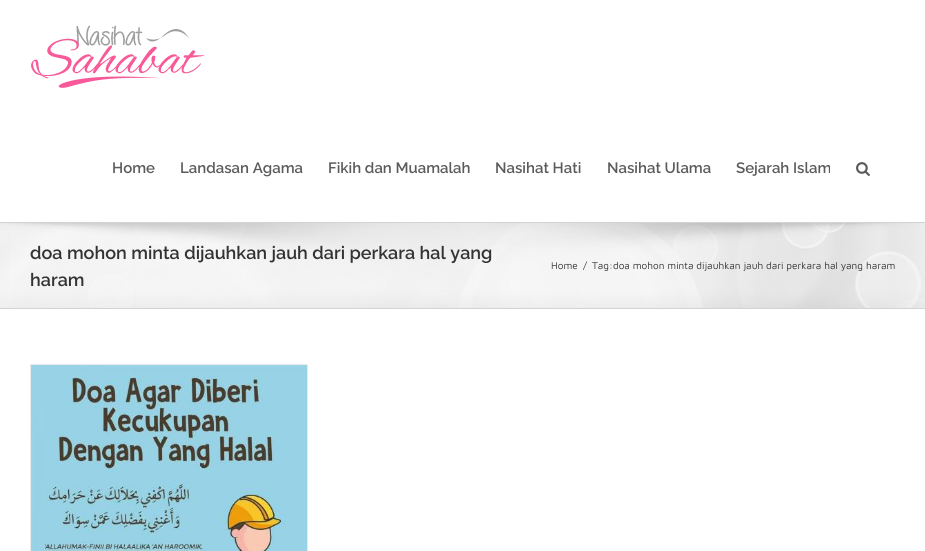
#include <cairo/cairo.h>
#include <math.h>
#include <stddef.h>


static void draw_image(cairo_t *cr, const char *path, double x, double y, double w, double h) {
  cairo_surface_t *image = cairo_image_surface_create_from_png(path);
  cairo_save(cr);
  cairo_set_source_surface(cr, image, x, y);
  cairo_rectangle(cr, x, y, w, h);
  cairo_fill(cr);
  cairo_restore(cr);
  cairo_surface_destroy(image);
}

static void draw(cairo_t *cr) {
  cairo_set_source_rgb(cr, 1, 1, 1);
  cairo_paint(cr);
  draw_image(cr, "images/1.png", 31, 25, 174, 63);
  draw_image(cr, "images/2.png", 856, 162, 14, 14);
  cairo_set_source_rgb(cr, 246 / 255.0, 246 / 255.0, 246 / 255.0);
  cairo_rectangle(cr, 0, 223, 925, 85);
  cairo_fill(cr);
  draw_image(cr, "images/3.png", 0, 223, 925, 85);
  cairo_set_source_rgb(cr, 210 / 255.0, 211 / 255.0, 212 / 255.0);
  cairo_rectangle(cr, 0, 222, 925, 1);
  cairo_fill(cr);
  cairo_rectangle(cr, 0, 308, 925, 1);
  cairo_fill(cr);
  cairo_set_source_rgb(cr, 235 / 255.0, 234 / 255.0, 234 / 255.0);
  cairo_rectangle(cr, 30, 364, 278, 1);
  cairo_fill(cr);
  cairo_rectangle(cr, 307, 364, 1, 187);
  cairo_fill(cr);
  cairo_rectangle(cr, 30, 364, 1, 187);
  cairo_fill(cr);
  draw_image(cr, "images/4.png", 31, 365, 276, 186);
  cairo_select_font_face(cr, "Raleway SemiBold", CAIRO_FONT_SLANT_NORMAL, CAIRO_FONT_WEIGHT_NORMAL);
  cairo_set_font_size(cr, 15);
  cairo_set_source_rgb(cr, 91 / 255.0, 91 / 255.0, 91 / 255.0);
  cairo_move_to(cr, 112, 173);
  cairo_show_text(cr, "Home");
  cairo_move_to(cr, 180, 173);
  cairo_show_text(cr, "Landasan Agama");
  cairo_move_to(cr, 328, 173);
  cairo_show_text(cr, "Fikih dan Muamalah");
  cairo_move_to(cr, 495, 173);
  cairo_show_text(cr, "Nasihat Hati");
  cairo_move_to(cr, 607, 173);
  cairo_show_text(cr, "Nasihat Ulama");
  cairo_move_to(cr, 736, 173);
  cairo_show_text(cr, "Sejarah Islam");
  cairo_set_font_size(cr, 18);
  cairo_set_source_rgb(cr, 51 / 255.0, 51 / 255.0, 51 / 255.0);
  cairo_move_to(cr, 30, 259);
  cairo_show_text(cr, "doa mohon minta dijauhkan jauh dari perkara hal yang");
  cairo_move_to(cr, 30, 286);
  cairo_show_text(cr, "haram");
  cairo_select_font_face(cr, "Maven Pro", CAIRO_FONT_SLANT_NORMAL, CAIRO_FONT_WEIGHT_NORMAL);
  cairo_set_font_size(cr, 10);
  cairo_move_to(cr, 551, 269);
  cairo_show_text(cr, "Home");
  cairo_move_to(cr, 583, 269);
  cairo_show_text(cr, "/");
  cairo_move_to(cr, 592, 269);
  cairo_show_text(cr, "Tag:doa mohon minta dijauhkan jauh dari perkara hal yang haram");
}

int main(void) {
  cairo_surface_t *surface = cairo_image_surface_create(CAIRO_FORMAT_RGB24, 925, 551);
  cairo_t *cr = cairo_create(surface);
  cairo_font_options_t *options = cairo_font_options_create();
  cairo_font_options_set_hint_metrics(options, CAIRO_HINT_METRICS_OFF);
  cairo_font_options_set_hint_style(options, CAIRO_HINT_STYLE_NONE);
  cairo_set_font_options(cr, options);
  cairo_set_miter_limit(cr, 4);
  draw(cr);
  cairo_surface_write_to_png(surface, "out.png");
  cairo_font_options_destroy(options);
  cairo_destroy(cr);
  cairo_surface_destroy(surface);
  return 0;
}
